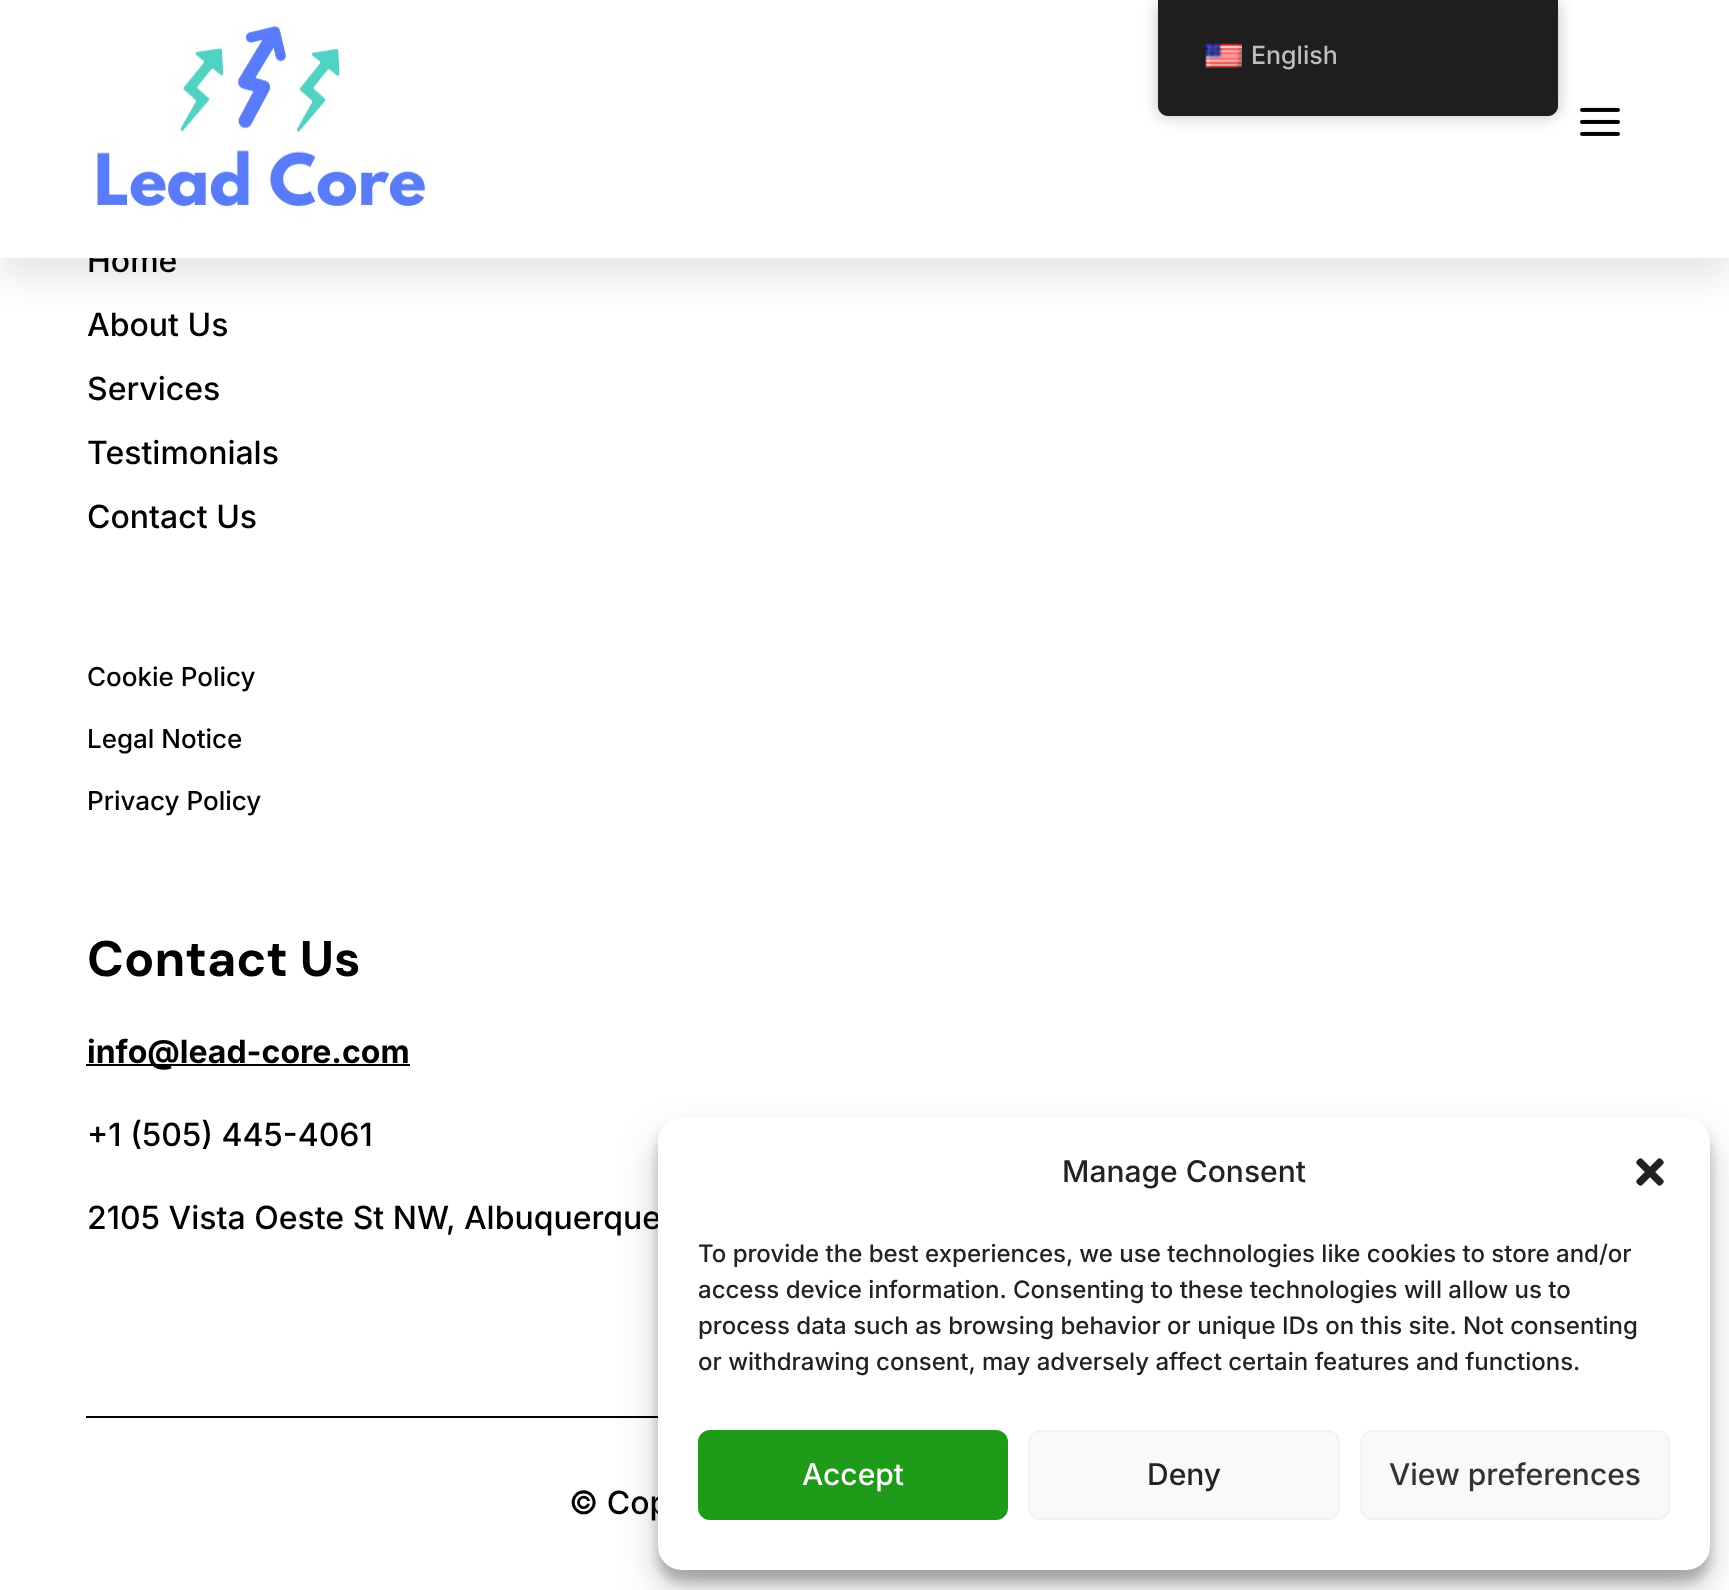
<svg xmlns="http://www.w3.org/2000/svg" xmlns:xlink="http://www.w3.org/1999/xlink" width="1729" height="1590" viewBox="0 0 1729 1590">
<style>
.cls-1{font:500 32px Inter;fill:#000000}
.cls-2{font:500 25px Inter;fill:#bdbdbd}
.cls-3{font:500 26px Inter;fill:#000000}
.cls-4{font:bold 50px DM Sans;fill:#000000}
.cls-5{font:bold 32px Inter;fill:#000000}
.cls-6{font:500 30px Inter;fill:#222222}
.cls-7{font:500 24px Inter;fill:#222222}
.cls-8{font:500 30px Inter;fill:#ffffff}
.cls-9{font:500 30px Inter;fill:#333333}
</style>
<rect width="100%" height="100%" fill="#ffffff"/>
<rect fill="#000000" fill-opacity="0.1" filter="blur(18px)" x="0" y="20" width="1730" height="258"/>
<rect fill="#000000" x="86" y="1064" width="324" height="2"/>
<rect fill="#000000" x="86" y="1416" width="572" height="2"/>
<rect fill="#000000" fill-opacity="0.23" filter="blur(6px)" x="658" y="1130" width="1052" height="452" rx="24"/>
<rect fill="#000000" fill-opacity="0.19" filter="blur(20px)" x="658" y="1138" width="1052" height="452" rx="24"/>
<text class="cls-1" x="87" y="272">Home</text>
<rect fill="#ffffff" x="0" y="0" width="1729" height="258"/>
<image xlink:href="image2.png" x="1580" y="107" width="40" height="29"/>
<rect fill="#000000" fill-opacity="0.25" filter="blur(8px)" x="1158" y="0" width="400" height="116" rx="10"/>
<path fill="#1e1e1e" d="M1158 0H1558V106C1558 111.5 1553.5 116 1548 116H1168C1162.5 116 1158 111.5 1158 106Z"/>
<text class="cls-2" x="1251" y="64">English</text>
<image xlink:href="image0.png" x="1205" y="43" width="37" height="25"/>
<image xlink:href="image1.png" x="90" y="18" width="336" height="201"/>
<text class="cls-1" x="87" y="336">About Us</text>
<text class="cls-1" x="87" y="400">Services</text>
<text class="cls-1" x="87" y="464">Testimonials</text>
<text class="cls-1" x="87" y="528">Contact Us</text>
<text class="cls-3" x="87" y="686">Cookie Policy</text>
<text class="cls-3" x="87" y="748">Legal Notice</text>
<text class="cls-3" x="87" y="810">Privacy Policy</text>
<text class="cls-4" x="87" y="976">Contact Us</text>
<text class="cls-5" x="87" y="1063">info@lead-core.com</text>
<text class="cls-1" x="87" y="1146">+1 (505) 445-4061</text>
<text class="cls-1" x="87" y="1229">2105 Vista Oeste St NW, Albuquerque</text>
<text class="cls-1" x="569" y="1514">© Cop</text>
<rect fill="#ffffff" x="658" y="1118" width="1052" height="452" rx="24"/>
<text class="cls-6" x="1062" y="1182">Manage Consent</text>
<image xlink:href="image3.png" x="1636" y="1158" width="28" height="28"/>
<text class="cls-7"><tspan x="698" y="1262">To provide the best experiences, we use technologies like cookies to store and/or</tspan><tspan x="698" y="1298">access device information. Consenting to these technologies will allow us to</tspan><tspan x="698" y="1334">process data such as browsing behavior or unique IDs on this site. Not consenting</tspan><tspan x="698" y="1370">or withdrawing consent, may adversely affect certain features and functions.</tspan></text>
<rect fill="#1f9b1a" stroke="#1f9b1a" stroke-width="2" x="699" y="1431" width="308" height="88" rx="11"/>
<text class="cls-8" x="802" y="1485">Accept</text>
<rect fill="#f9f9f9" stroke="#f2f2f2" stroke-width="2" x="1029" y="1431" width="310" height="88" rx="11"/>
<text class="cls-6" x="1147" y="1485">Deny</text>
<rect fill="#f9f9f9" stroke="#f2f2f2" stroke-width="2" x="1361" y="1431" width="308" height="88" rx="11"/>
<text class="cls-9" x="1389" y="1485">View preferences</text>
</svg>
